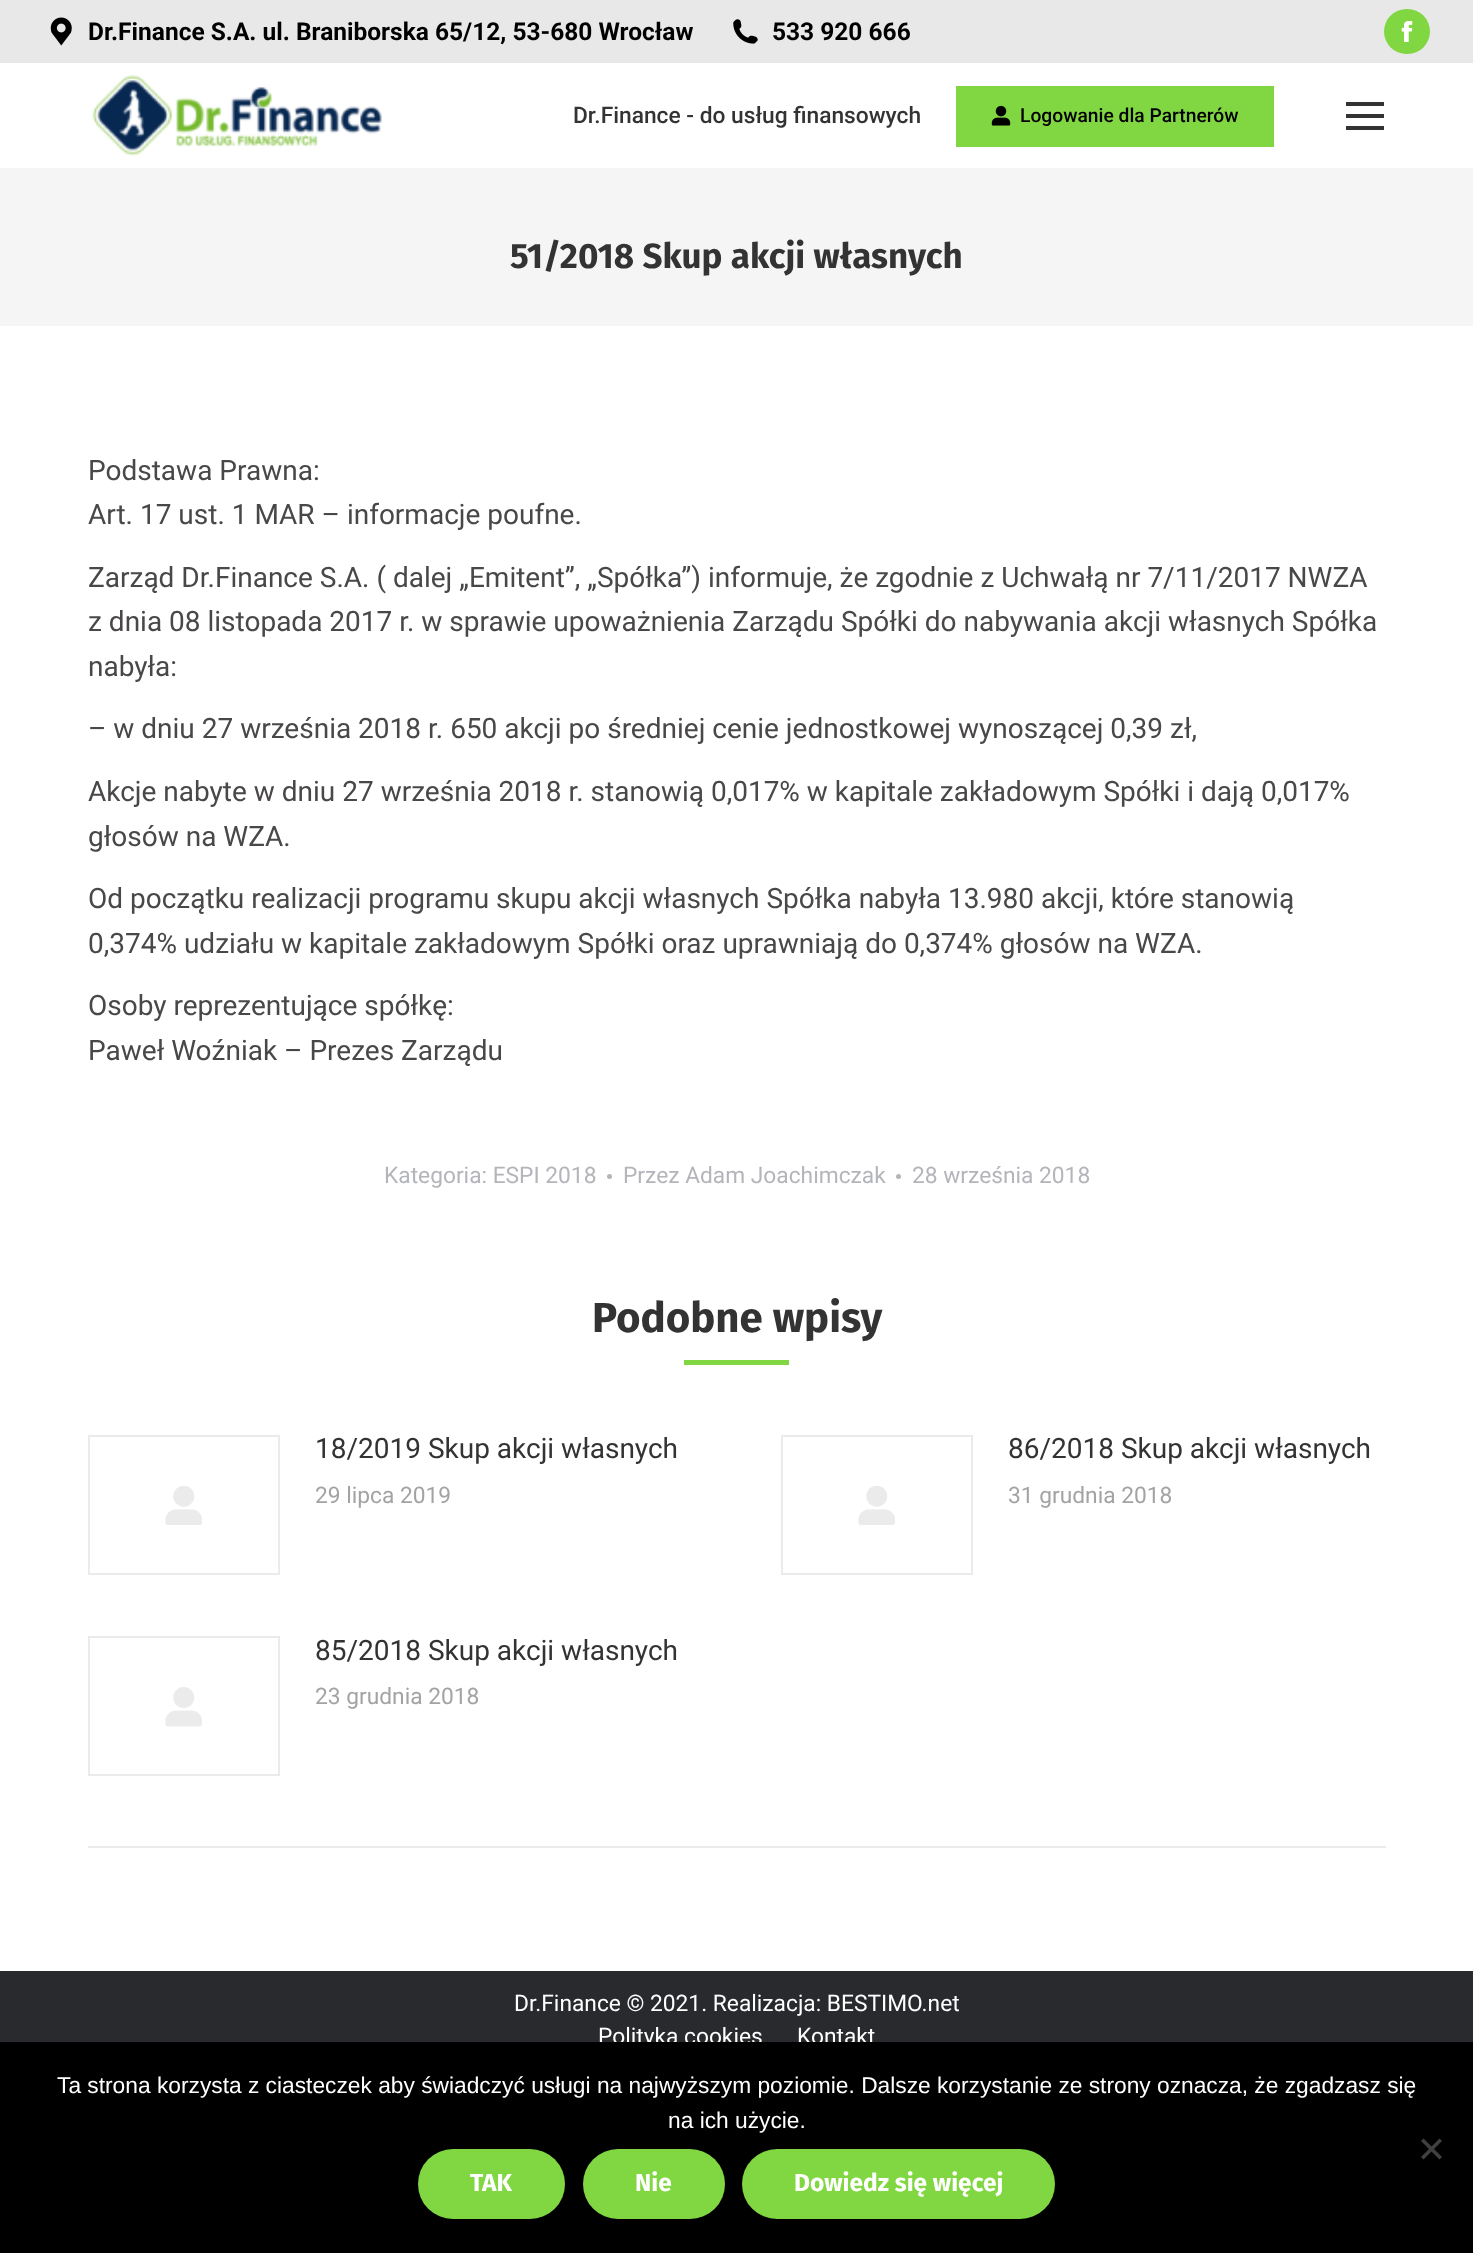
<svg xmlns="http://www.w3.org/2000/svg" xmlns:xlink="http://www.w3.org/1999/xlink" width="1473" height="2253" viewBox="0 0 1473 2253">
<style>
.cls-1{font:bold 24.5px Roboto;fill:#000000}
.cls-2{font:500 22.75px Roboto;fill:#333333}
.cls-3{font:500 19.25px Roboto;fill:#000000}
.cls-4{font:bold 35px Fira Sans;fill:#333333}
.cls-5{font:28px Roboto;fill:#494747}
.cls-6{font:22.75px Roboto;fill:#b4b5bb}
.cls-7{font:bold 42px Fira Sans;fill:#333333}
.cls-8{font:28px Roboto;fill:#333333}
.cls-9{font:22.75px Roboto;fill:#a4a3a3}
.cls-10{font:22.75px Roboto;fill:#ffffff}
.cls-11{font:22.75px Liberation Sans;fill:#ffffff}
.cls-12{font:bold 24.5px Fira Sans;fill:#ffffff}
</style>
<rect width="100%" height="100%" fill="#ffffff"/>
<rect fill="#e8e8e8" x="0" y="0" width="1473" height="63"/>
<image xlink:href="image0.png" x="50" y="17" width="22" height="29"/>
<image xlink:href="image1.png" x="733" y="19" width="25" height="25"/>
<rect fill="#81d742" x="1384" y="9" width="46" height="45" rx="22.5"/>
<image xlink:href="image2.png" x="1401" y="21" width="12" height="21"/>
<image xlink:href="image3.png" x="92" y="75" width="290" height="81"/>
<rect fill="#81d742" x="956" y="86" width="318" height="61"/>
<image xlink:href="image4.png" x="991" y="105" width="20" height="21"/>
<rect fill="#333333" x="1346" y="102" width="38" height="4"/>
<rect fill="#333333" x="1346" y="114" width="38" height="4"/>
<rect fill="#333333" x="1346" y="126" width="38" height="4"/>
<rect fill="#f5f5f5" x="0" y="168" width="1473" height="158"/>
<circle fill="#b4b5bb" cx="609.5" cy="1176.5" r="2.5"/>
<circle fill="#b4b5bb" cx="898.5" cy="1176.5" r="2.5"/>
<rect fill="#ebebeb" x="88" y="1846" width="1298" height="2"/>
<rect fill="#81d742" x="684" y="1360" width="105" height="5"/>
<rect fill="none" stroke="#ebebeb" stroke-width="2" x="89" y="1436" width="190" height="138"/>
<image xlink:href="image5.png" x="165" y="1486" width="37" height="39"/>
<rect fill="none" stroke="#ebebeb" stroke-width="2" x="782" y="1436" width="190" height="138"/>
<image xlink:href="image5.png" x="858" y="1486" width="37" height="39"/>
<rect fill="none" stroke="#ebebeb" stroke-width="2" x="89" y="1637" width="190" height="138"/>
<image xlink:href="image6.png" x="165" y="1687" width="37" height="40"/>
<rect fill="#282a2d" x="0" y="1971" width="1473" height="71"/>
<text class="cls-1" x="88" y="40">Dr.Finance S.A. ul. Braniborska 65/12, 53-680 Wrocław</text>
<text class="cls-1" x="772" y="40">533 920 666</text>
<text class="cls-2" x="573" y="123">Dr.Finance - do usług finansowych</text>
<text class="cls-3" x="1020" y="122">Logowanie dla Partnerów</text>
<text class="cls-4" x="510" y="268">51/2018 Skup akcji własnych</text>
<text class="cls-5"><tspan x="88" y="480">Podstawa Prawna:</tspan><tspan x="88" y="524">Art. 17 ust. 1 MAR – informacje poufne.</tspan></text>
<text class="cls-5"><tspan x="88" y="587">Zarząd Dr.Finance S.A. ( dalej „Emitent”, „Spółka”) informuje, że zgodnie z Uchwałą nr 7/11/2017 NWZA</tspan><tspan x="88" y="631">z dnia 08 listopada 2017 r. w sprawie upoważnienia Zarządu Spółki do nabywania akcji własnych Spółka</tspan><tspan x="88" y="676">nabyła:</tspan></text>
<text class="cls-5" x="88" y="738">– w dniu 27 września 2018 r. 650 akcji po średniej cenie jednostkowej wynoszącej 0,39 zł,</text>
<text class="cls-5"><tspan x="88" y="801">Akcje nabyte w dniu 27 września 2018 r. stanowią 0,017% w kapitale zakładowym Spółki i dają 0,017%</tspan><tspan x="88" y="846">głosów na WZA.</tspan></text>
<text class="cls-5"><tspan x="88" y="908">Od początku realizacji programu skupu akcji własnych Spółka nabyła 13.980 akcji, które stanowią</tspan><tspan x="88" y="953">0,374% udziału w kapitale zakładowym Spółki oraz uprawniają do 0,374% głosów na WZA.</tspan></text>
<text class="cls-5"><tspan x="88" y="1015">Osoby reprezentujące spółkę:</tspan><tspan x="88" y="1060">Paweł Woźniak – Prezes Zarządu</tspan></text>
<text class="cls-6" x="384" y="1183">Kategoria: ESPI 2018</text>
<text class="cls-6" x="623" y="1183">Przez Adam Joachimczak</text>
<text class="cls-6" x="912" y="1183">28 września 2018</text>
<text class="cls-7" x="592" y="1332">Podobne wpisy</text>
<text class="cls-8" x="315" y="1458">18/2019 Skup akcji własnych</text>
<text class="cls-9" x="315" y="1503">29 lipca 2019</text>
<text class="cls-8" x="1008" y="1458">86/2018 Skup akcji własnych</text>
<text class="cls-9" x="1008" y="1503">31 grudnia 2018</text>
<text class="cls-8" x="315" y="1660">85/2018 Skup akcji własnych</text>
<text class="cls-9" x="315" y="1704">23 grudnia 2018</text>
<text class="cls-10" x="514" y="2011">Dr.Finance © 2021. Realizacja: BESTIMO.net</text>
<text class="cls-10" x="598" y="2044">Polityka cookies</text>
<text class="cls-10" x="797" y="2044">Kontakt</text>
<rect fill="#000000" x="0" y="2042" width="1473" height="211"/>
<text class="cls-11" x="57" y="2093">Ta strona korzysta z ciasteczek aby świadczyć usługi na najwyższym poziomie. Dalsze korzystanie ze strony oznacza, że zgadzasz się</text>
<text class="cls-11" x="668" y="2128">na ich użycie.</text>
<path fill="#404040" d="M1439.5 2138.5L1442 2141L1423.5 2159.5L1421 2157Z"/>
<path fill="#404040" d="M1421 2141L1423.5 2138.5L1442 2157L1439.5 2159.5Z"/>
<rect fill="#81d742" x="418" y="2149" width="147" height="70" rx="35"/>
<text class="cls-12" x="470" y="2191">TAK</text>
<rect fill="#81d742" x="583" y="2149" width="142" height="70" rx="35"/>
<text class="cls-12" x="635" y="2191">Nie</text>
<rect fill="#81d742" x="742" y="2149" width="313" height="70" rx="35"/>
<text class="cls-12" x="794" y="2191">Dowiedz się więcej</text>
</svg>
